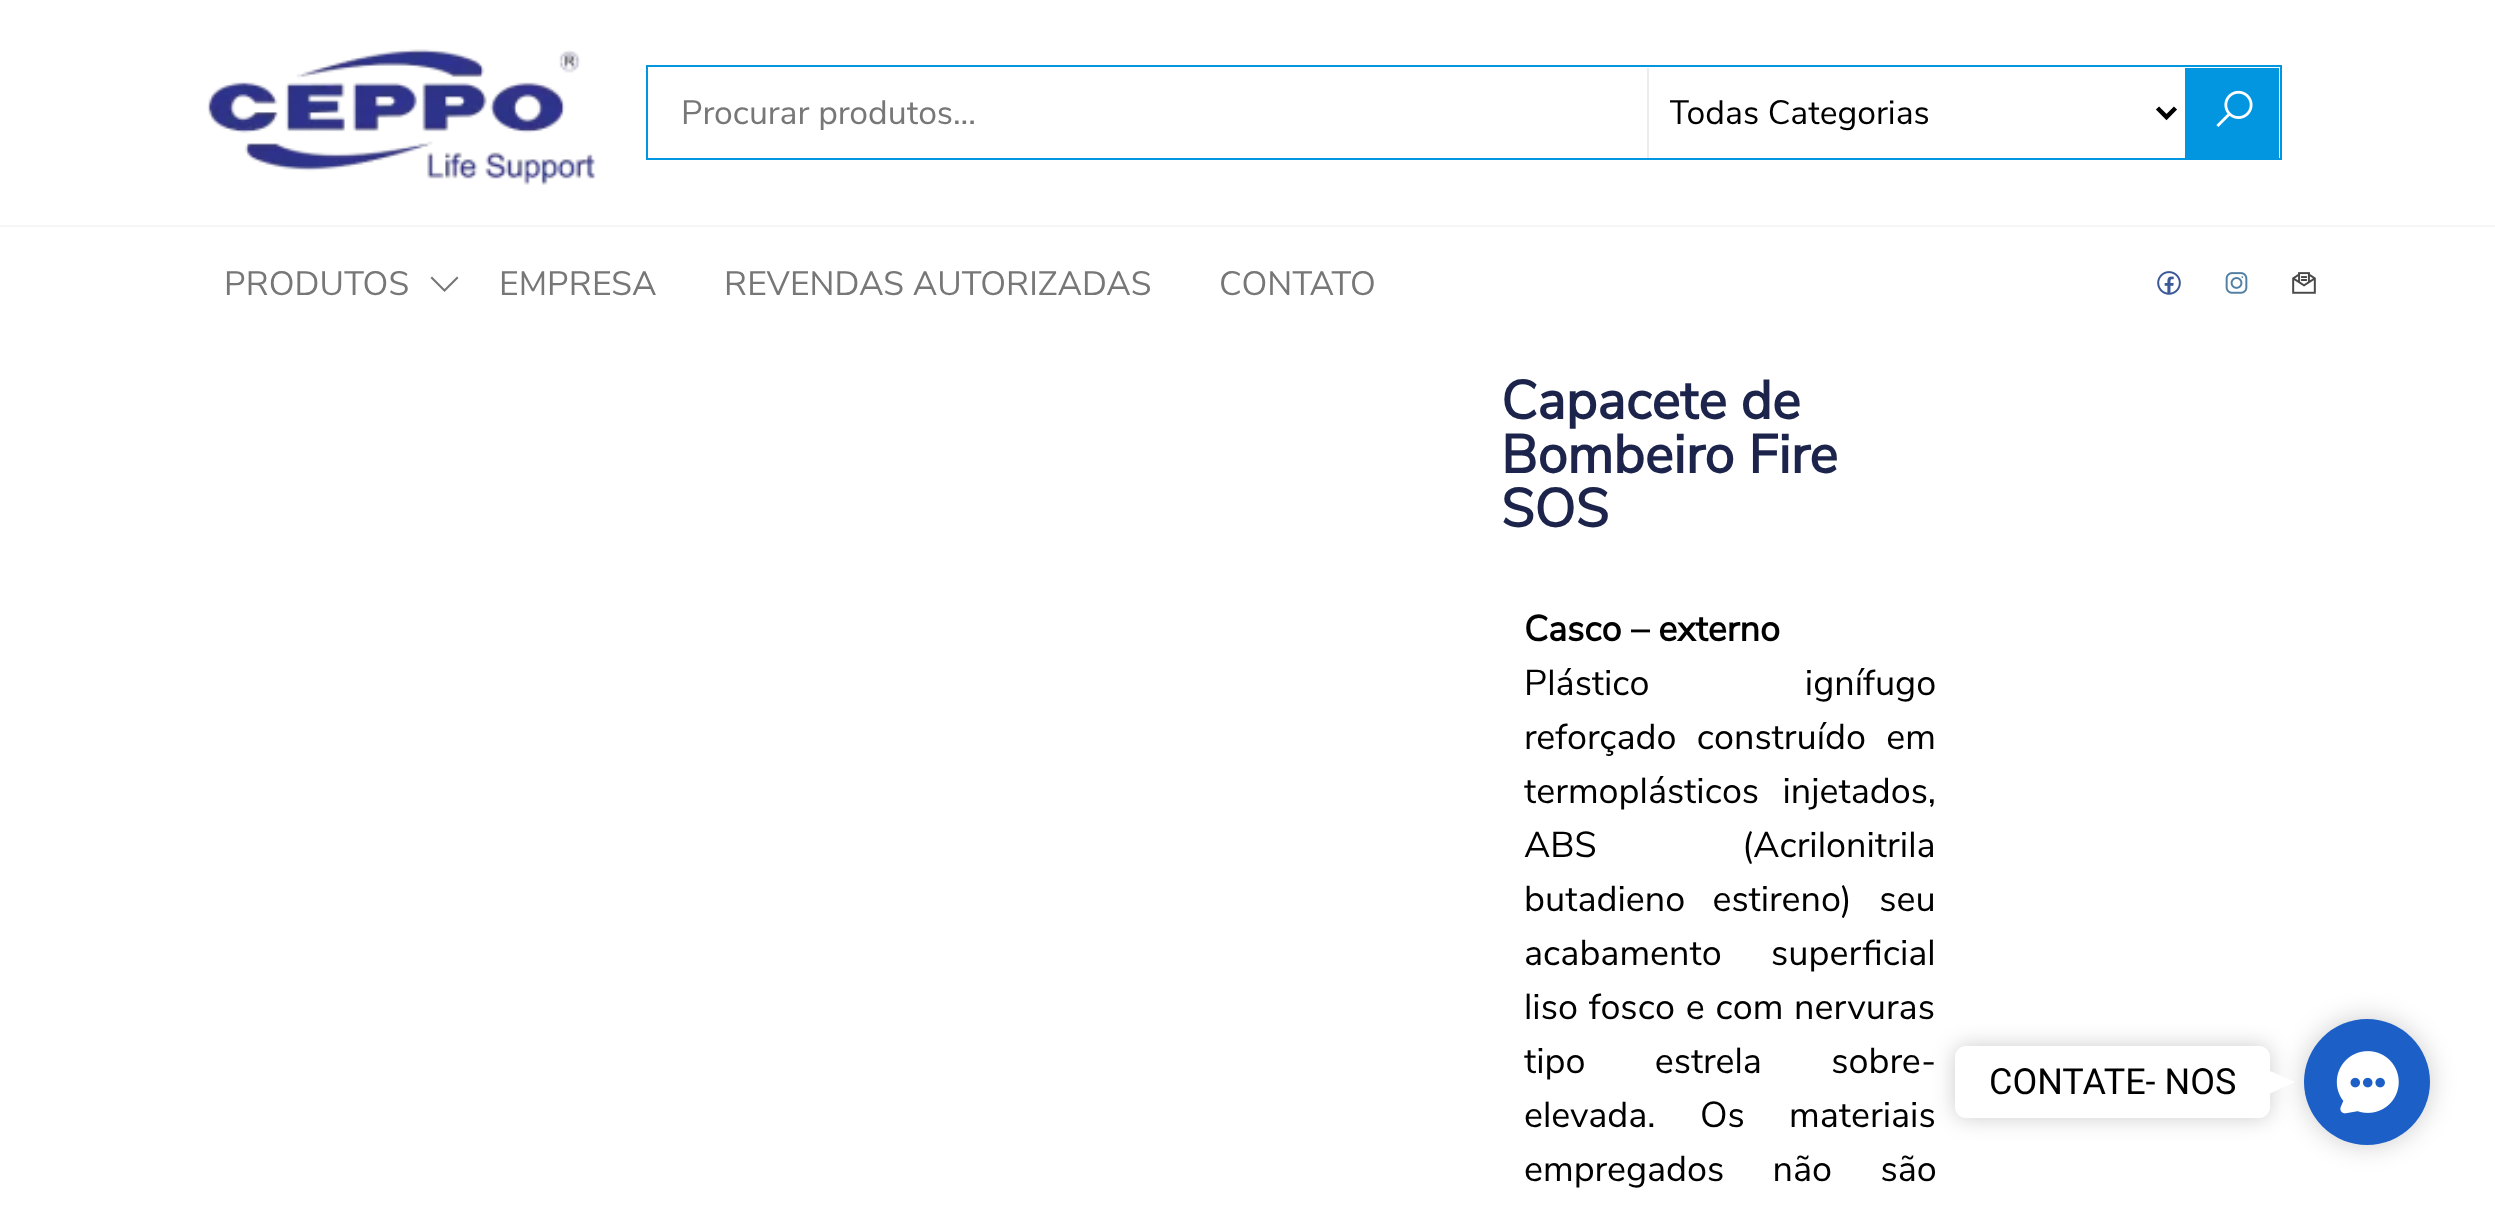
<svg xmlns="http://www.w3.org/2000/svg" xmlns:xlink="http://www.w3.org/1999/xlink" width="2495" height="1210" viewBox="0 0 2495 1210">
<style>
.cls-1{font:33.75px Nunito Sans;fill:#777777}
.cls-2{font:33.75px Nunito Sans;fill:#000000}
.cls-3{font:bold 54px Nunito Sans;fill:#1c244b}
.cls-4{font:bold 36px Nunito Sans;fill:#000000}
.cls-5{font:36px Nunito Sans;fill:#000000}
.cls-6{font:36px Roboto;fill:#000000}
</style>
<defs>
<clipPath id="clip1"><rect x="1670" y="88" width="468" height="49"/></clipPath>
</defs>
<rect width="100%" height="100%" fill="#ffffff"/>
<rect fill="#f6f6f6" x="0" y="225" width="2495" height="2"/>
<image xlink:href="image0.png" x="207" y="49" width="389" height="136"/>
<rect fill="none" stroke="#0396e0" stroke-width="2" x="647" y="66" width="1634" height="93"/>
<rect fill="#ececec" x="1647" y="68" width="2" height="90"/>
<path fill="none" stroke="#000000" stroke-width="4.5" d="M2157.5 108L2166.5 117L2175.5 108"/>
<rect fill="#0396e0" x="2185" y="68" width="94" height="90"/>
<image xlink:href="image1.png" x="2216" y="90" width="37" height="37"/>
<path fill="#777777" d="M432 276.5L430.5 278L444.5 292L458.5 278L457 276.5L444.5 289Z"/>
<image xlink:href="image2.png" x="2157" y="271" width="24" height="24"/>
<image xlink:href="image3.png" x="2225" y="272" width="23" height="22"/>
<image xlink:href="image4.png" x="2292" y="272" width="24" height="22"/>
<rect fill="#000000" fill-opacity="0.2" filter="blur(11px)" x="1955" y="1046" width="315" height="72" rx="11"/>
<rect fill="#000000" fill-opacity="0.2" filter="blur(13.5px)" x="2304" y="1019" width="126" height="126" rx="63"/>
<rect fill="#ffffff" x="1955" y="1046" width="315" height="72" rx="11"/>
<path fill="#ffffff" d="M2270 1093.5V1071L2295 1082Z"/>
<circle fill="#1c5fc6" cx="2367" cy="1082" r="63"/>
<image xlink:href="image5.png" x="2336" y="1051" width="63" height="63"/>
<text class="cls-1" x="681" y="124">Procurar produtos...</text>
<g clip-path="url(#clip1)">
<text class="cls-2" x="1669" y="124">Todas Categorias</text>
</g>
<text class="cls-1" x="224" y="295">PRODUTOS</text>
<text class="cls-1" x="499" y="295">EMPRESA</text>
<text class="cls-1" x="724" y="295">REVENDAS AUTORIZADAS</text>
<text class="cls-1" x="1219" y="295">CONTATO</text>
<text class="cls-3"><tspan x="1501" y="419">Capacete de</tspan><tspan x="1501" y="473">Bombeiro Fire</tspan><tspan x="1501" y="527">SOS</tspan></text>
<text class="cls-4" x="1524" y="641">Casco – externo</text>
<text class="cls-5"><tspan x="1524" y="695" word-spacing="146">Plástico ignífugo</tspan><tspan x="1524" y="749" word-spacing="11">reforçado construído em</tspan><tspan x="1524" y="803" word-spacing="14">termoplásticos injetados,</tspan><tspan x="1524" y="857" word-spacing="136">ABS (Acrilonitrila</tspan><tspan x="1524" y="911" word-spacing="18">butadieno estireno) seu</tspan><tspan x="1524" y="965" word-spacing="40">acabamento superficial</tspan><tspan x="1524" y="1019" word-spacing="1.5">liso fosco e com nervuras</tspan><tspan x="1524" y="1073" word-spacing="60">tipo estrela sobre-</tspan><tspan x="1524" y="1127" word-spacing="35">elevada. Os materiais</tspan><tspan x="1524" y="1181" word-spacing="39">empregados não são</tspan></text>
<text class="cls-6" x="1989" y="1094">CONTATE- NOS</text>
</svg>
